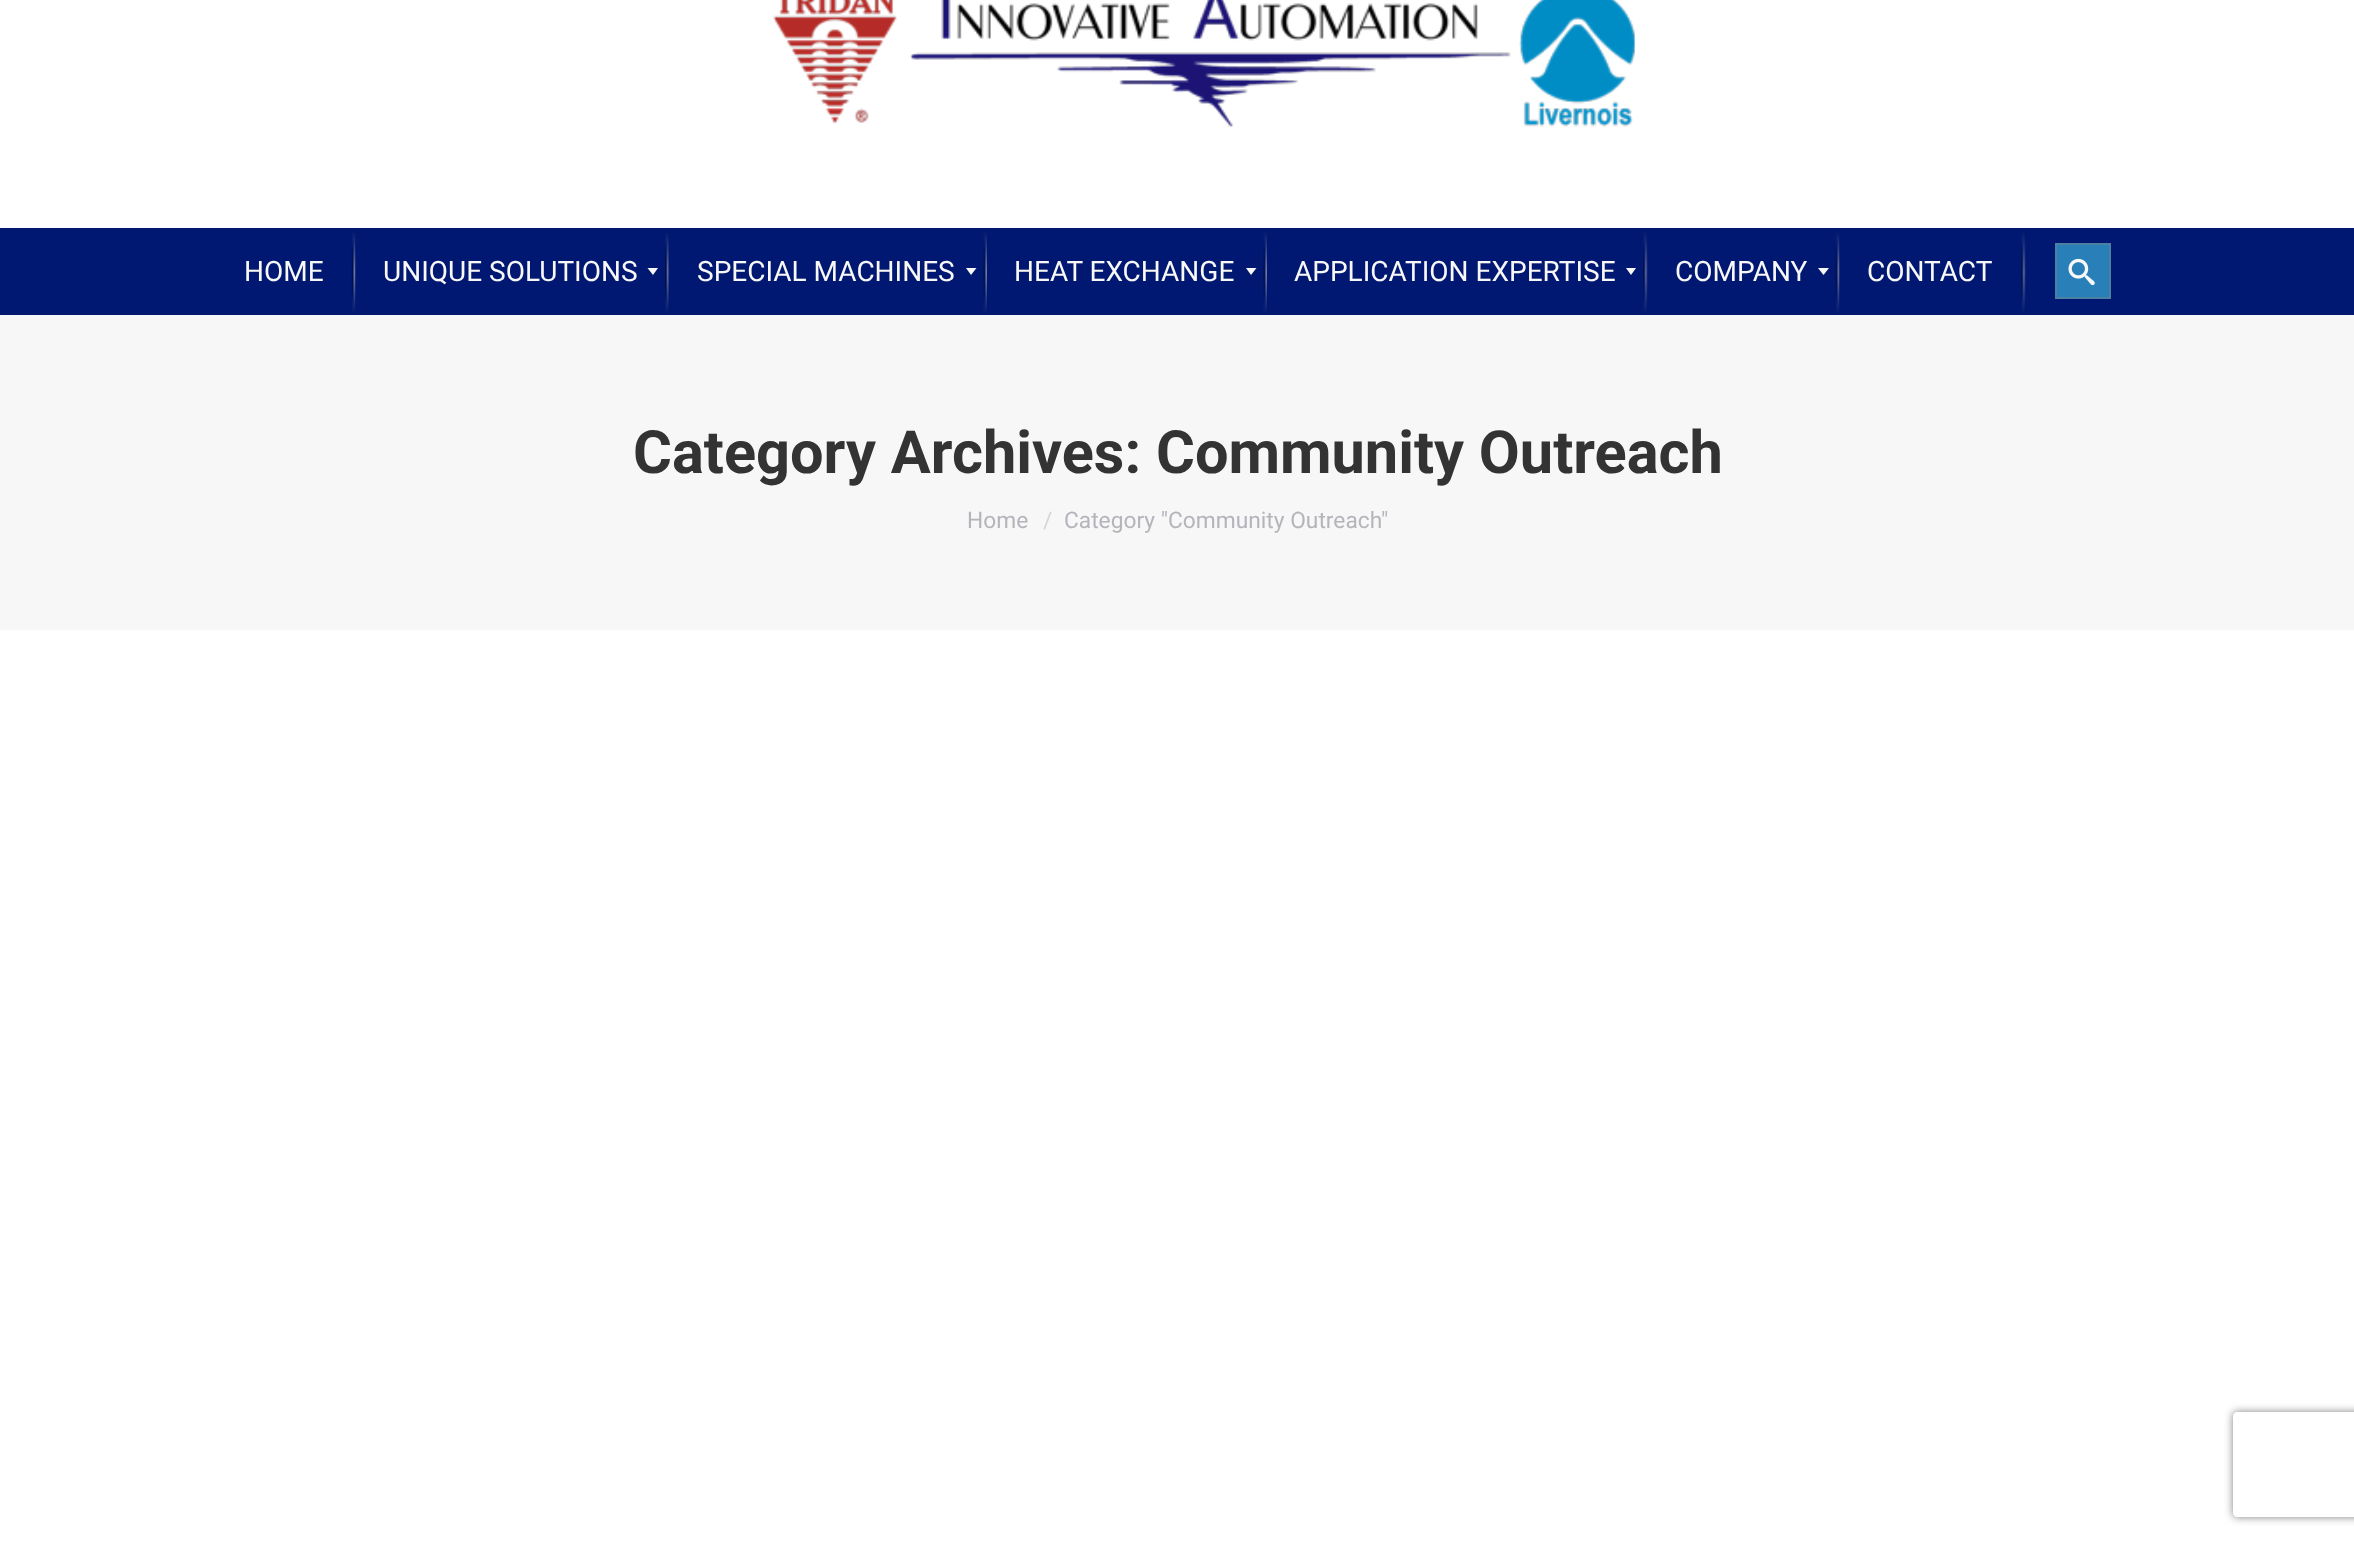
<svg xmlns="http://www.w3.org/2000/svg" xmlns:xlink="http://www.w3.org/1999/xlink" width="2354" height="1541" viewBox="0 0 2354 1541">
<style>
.cls-1{font:28px Roboto;fill:#f8f8f8}
.cls-2{font:bold 59.5px Roboto;fill:#333333}
.cls-3{font:22.75px Roboto;fill:#b4b5bb}
.cls-4{font:22.75px Roboto;fill:#d6d6d9}
</style>
<defs>
<clipPath id="clip1"><path d="M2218 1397H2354V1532H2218ZM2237 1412H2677C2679 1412 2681 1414 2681 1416V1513C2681 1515 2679 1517 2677 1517H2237C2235 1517 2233 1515 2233 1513V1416C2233 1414 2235 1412 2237 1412Z" clip-rule="evenodd"/></clipPath>
</defs>
<rect width="100%" height="100%" fill="#ffffff"/>
<image xlink:href="image0.png" x="773" y="0" width="863" height="128"/>
<rect fill="#001871" x="0" y="228" width="2354" height="87"/>
<image xlink:href="image1.png" x="351" y="233" width="5" height="79"/>
<path fill="#f8f8f8" d="M647.5 268H658L653 275Z"/>
<image xlink:href="image2.png" x="665" y="233" width="4" height="79"/>
<path fill="#f8f8f8" d="M966 268H976.5L971 275Z"/>
<image xlink:href="image3.png" x="983" y="233" width="4" height="79"/>
<path fill="#f8f8f8" d="M1246 268H1256.5L1251 275Z"/>
<image xlink:href="image3.png" x="1263" y="233" width="4" height="79"/>
<path fill="#f8f8f8" d="M1626 268H1636L1631 275Z"/>
<image xlink:href="image4.png" x="1643" y="233" width="5" height="79"/>
<path fill="#f8f8f8" d="M1818 268H1829L1823.5 275Z"/>
<image xlink:href="image5.png" x="1835" y="233" width="5" height="79"/>
<image xlink:href="image6.png" x="2021" y="233" width="5" height="79"/>
<rect fill="#2980b9" stroke="#4c80a2" stroke-width="2" x="2056" y="244" width="54" height="54"/>
<image xlink:href="image7.png" x="2068" y="258" width="27" height="28"/>
<rect fill="#f7f7f7" x="0" y="315" width="2354" height="315"/>
<g clip-path="url(#clip1)">
<rect fill="#808080" filter="blur(4.5px)" x="2233" y="1412" width="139" height="105" rx="4"/>
</g>
<text class="cls-1" x="244" y="281">HOME</text>
<text class="cls-1" x="383" y="281">UNIQUE SOLUTIONS</text>
<text class="cls-1" x="697" y="281">SPECIAL MACHINES</text>
<text class="cls-1" x="1014" y="281">HEAT EXCHANGE</text>
<text class="cls-1" x="1294" y="281">APPLICATION EXPERTISE</text>
<text class="cls-1" x="1675" y="281">COMPANY</text>
<text class="cls-1" x="1867" y="281">CONTACT</text>
<text class="cls-2" x="633" y="473">Category Archives: Community Outreach</text>
<text class="cls-3" x="967" y="528">Home</text>
<text class="cls-4" x="1043" y="528">/</text>
<text class="cls-3" x="1064" y="528">Category "Community Outreach"</text>
</svg>
